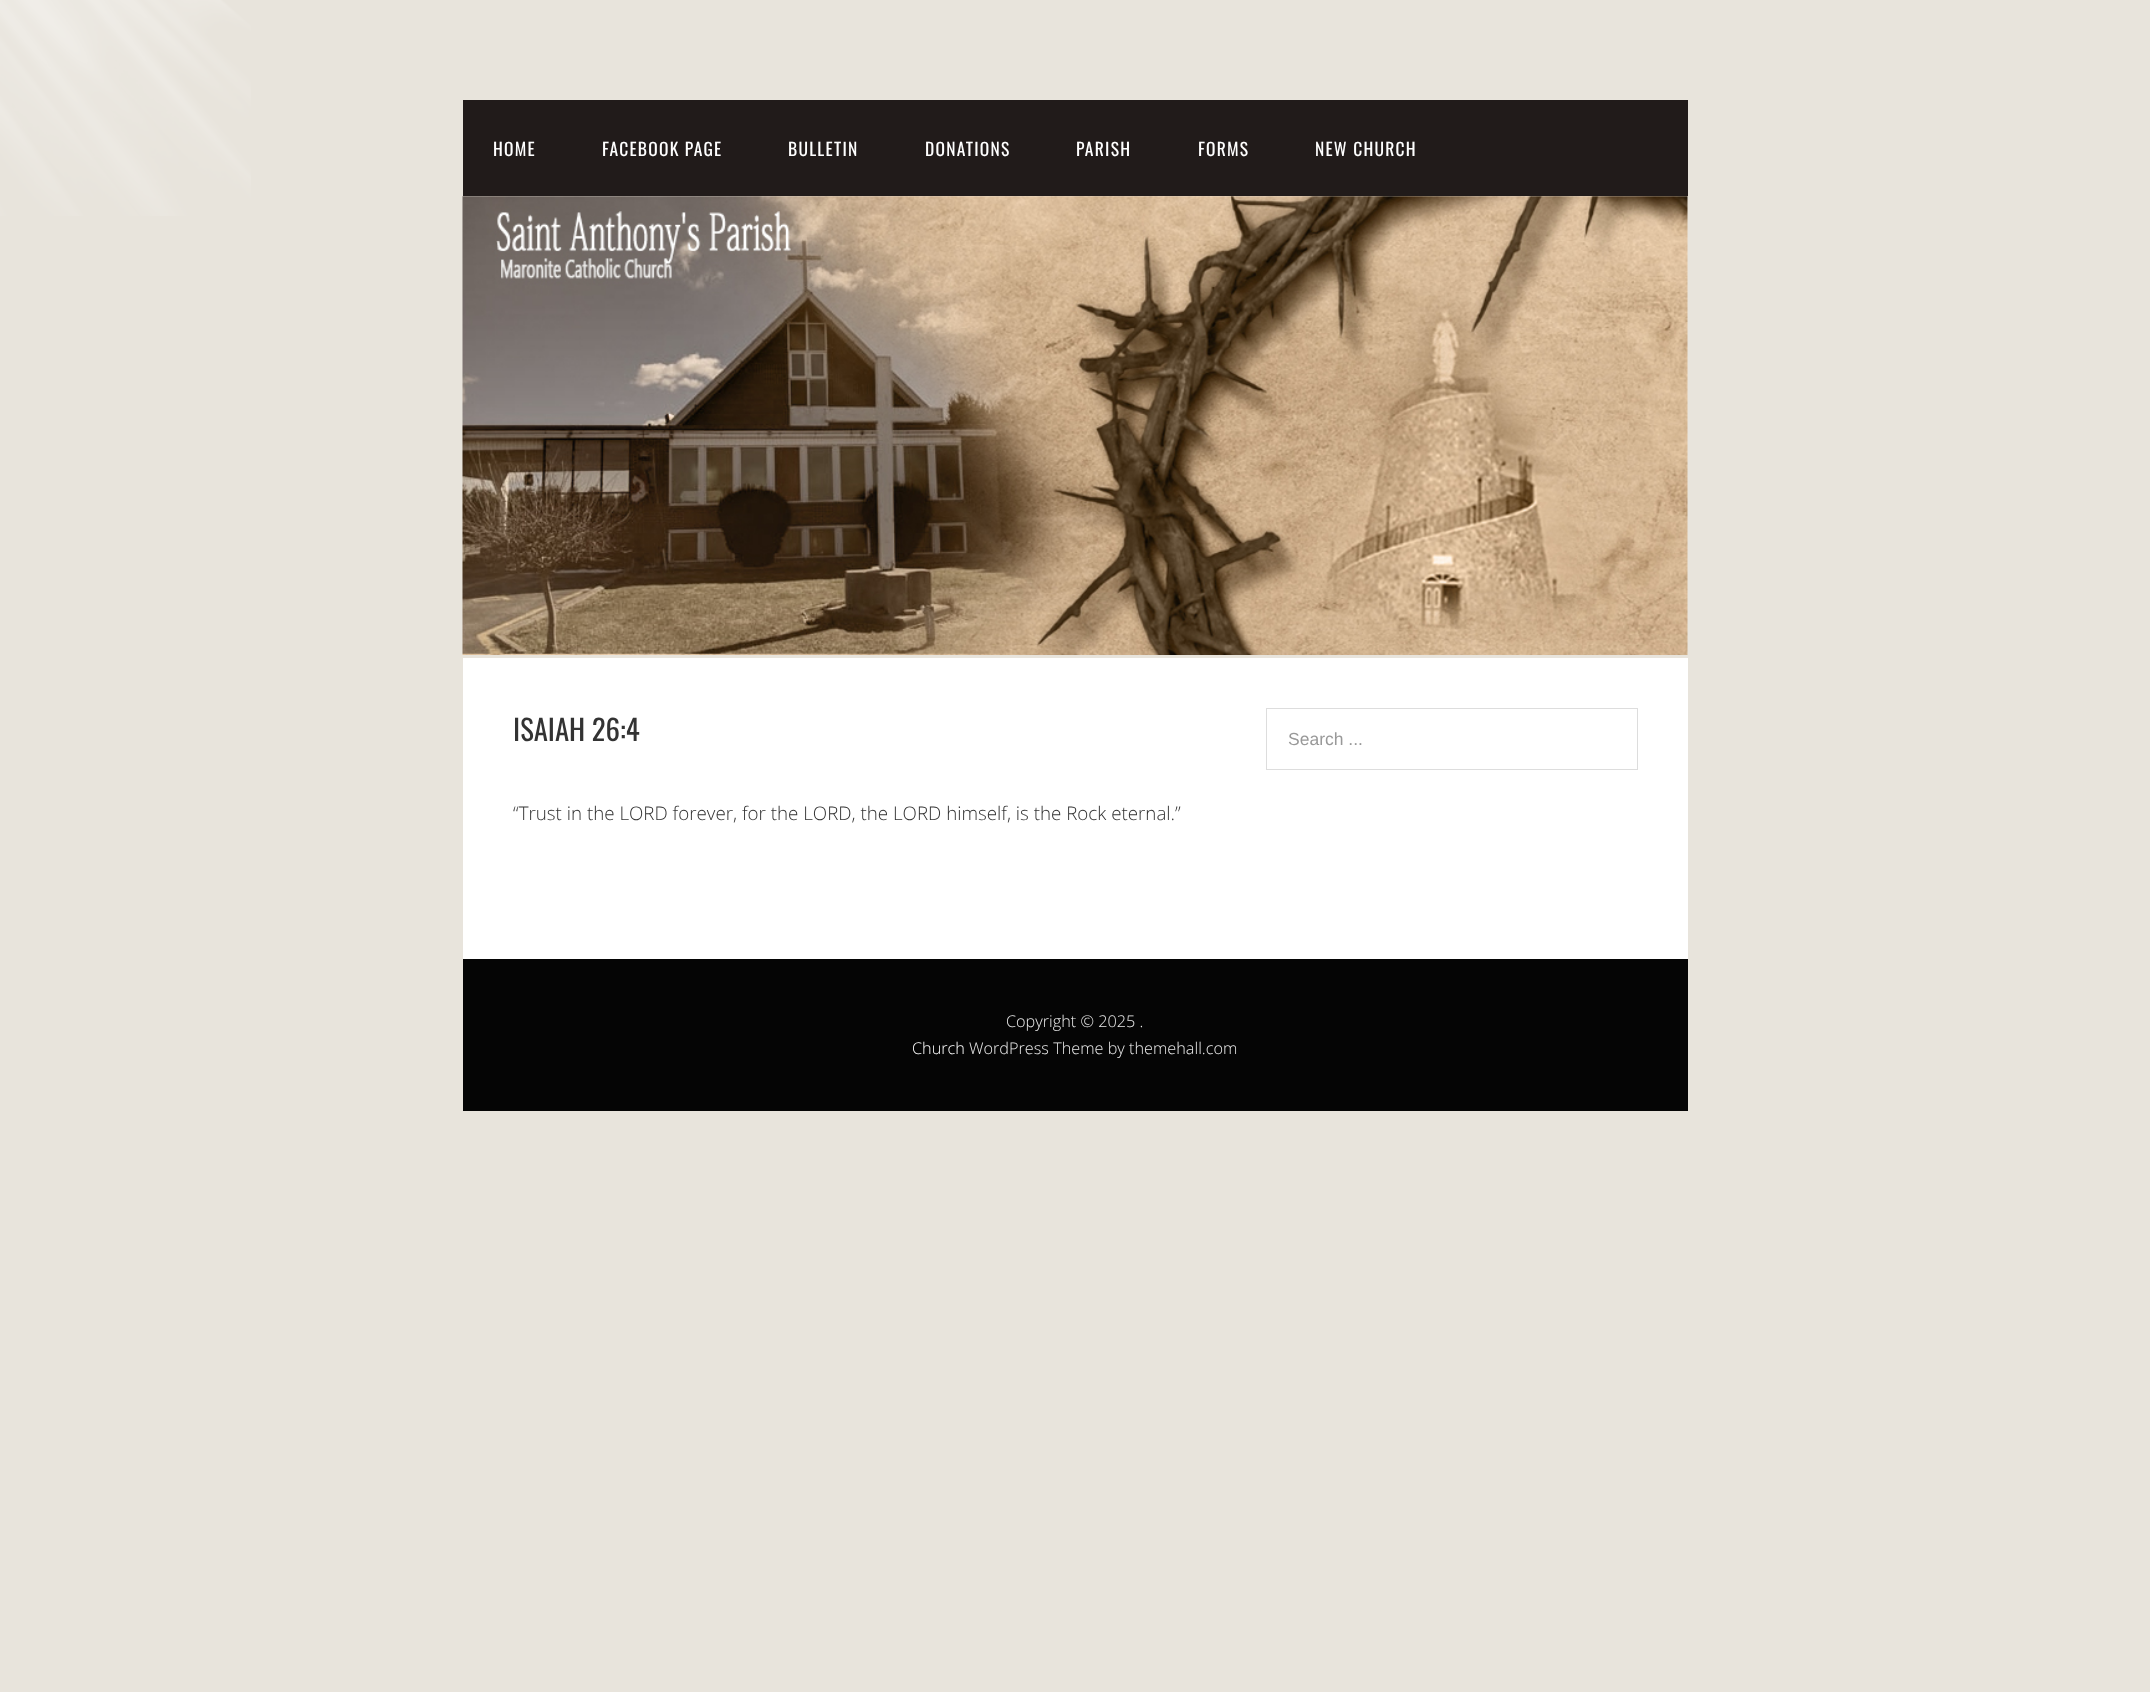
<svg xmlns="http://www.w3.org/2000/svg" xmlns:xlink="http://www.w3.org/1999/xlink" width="2150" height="1692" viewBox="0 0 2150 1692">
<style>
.cls-1{font:17.5px Oswald;letter-spacing:1.25px;fill:#ffffff}
.cls-2{font:28.75px Oswald;fill:#333333}
.cls-3{font:300 18.75px Open Sans;fill:#333333}
.cls-4{font:17.5px Liberation Sans;fill:#999999}
.cls-5{font:300 16.25px Open Sans;fill:#eaeaea}
.cls-6{font:300 16.25px Open Sans;fill:#ffffff}
</style>
<rect width="100%" height="100%" fill="#e8e4dc"/>
<image xlink:href="image0.png" x="0" y="0" width="251" height="216"/>
<rect fill="#211b1a" x="463" y="100" width="1225" height="96"/>
<image xlink:href="image1.png" x="462" y="196" width="1226" height="459"/>
<rect fill="#ffffff" x="463" y="658" width="1225" height="301"/>
<rect fill="none" stroke="#dddddd" x="1266.5" y="708.5" width="371" height="61"/>
<rect fill="#050505" x="463" y="959" width="1225" height="152"/>
<text class="cls-1" x="493" y="156">HOME</text>
<text class="cls-1" x="602" y="156">FACEBOOK PAGE</text>
<text class="cls-1" x="788" y="156">BULLETIN</text>
<text class="cls-1" x="925" y="156">DONATIONS</text>
<text class="cls-1" x="1076" y="156">PARISH</text>
<text class="cls-1" x="1198" y="156">FORMS</text>
<text class="cls-1" x="1315" y="156">NEW CHURCH</text>
<text class="cls-2" x="513" y="741">ISAIAH 26:4</text>
<text class="cls-3" x="513" y="820">“Trust in the LORD forever, for the LORD, the LORD himself, is the Rock eternal.”</text>
<text class="cls-4" x="1288" y="745">Search ...</text>
<text class="cls-5" x="1006" y="1027">Copyright © 2025 .</text>
<text class="cls-6" x="912" y="1054">Church</text>
<text class="cls-5" x="969" y="1054">WordPress Theme by themehall.com</text>
</svg>
